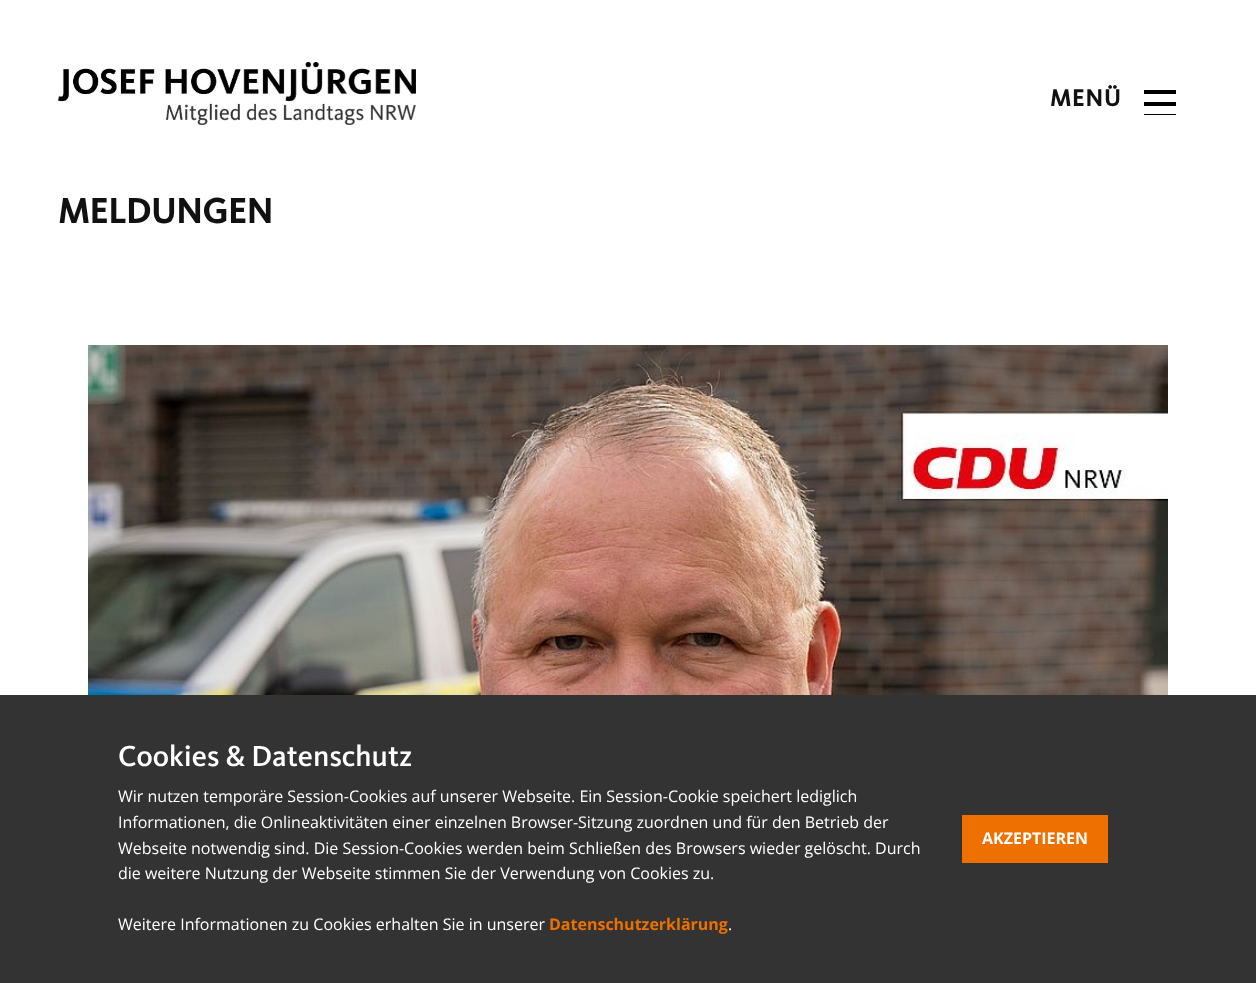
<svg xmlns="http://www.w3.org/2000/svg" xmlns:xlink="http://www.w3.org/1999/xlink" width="1256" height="983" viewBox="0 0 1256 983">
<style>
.cls-1{font:bold 24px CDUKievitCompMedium;letter-spacing:1px;fill:#111111}
.cls-2{font:bold 36px CDUKievitCompMedium;fill:#111111}
.cls-3{font:500 30px CDUKievitCompMedium;fill:#ffffff}
.cls-4{font:16px Open Sans;fill:#ffffff}
.cls-5{font:bold 16px Open Sans;fill:#ee7100}
.cls-6{font:bold 16px Open Sans;fill:#ffffff}
</style>
<rect width="100%" height="100%" fill="#ffffff"/>
<image xlink:href="image0.png" x="58" y="62" width="358" height="63"/>
<rect fill="#000000" x="1144" y="90" width="32" height="4"/>
<rect fill="#000000" x="1144" y="102" width="32" height="4"/>
<rect fill="#000000" x="1144" y="114" width="32" height="1"/>
<image xlink:href="image1.png" x="88" y="345" width="1080" height="350"/>
<rect fill="#333333" x="0" y="695" width="1256" height="288"/>
<rect fill="#ee7100" x="962" y="815" width="146" height="48"/>
<text class="cls-1" x="1050" y="106">MENÜ</text>
<text class="cls-2" x="58" y="223">MELDUNGEN</text>
<text class="cls-3" x="118" y="766">Cookies &amp; Datenschutz</text>
<text class="cls-4"><tspan x="118" y="802">Wir nutzen temporäre Session-Cookies auf unserer Webseite. Ein Session-Cookie speichert lediglich</tspan><tspan x="118" y="828">Informationen, die Onlineaktivitäten einer einzelnen Browser-Sitzung zuordnen und für den Betrieb der</tspan><tspan x="118" y="854">Webseite notwendig sind. Die Session-Cookies werden beim Schließen des Browsers wieder gelöscht. Durch</tspan><tspan x="118" y="879">die weitere Nutzung der Webseite stimmen Sie der Verwendung von Cookies zu.</tspan></text>
<text class="cls-4" x="118" y="930">Weitere Informationen zu Cookies erhalten Sie in unserer</text>
<text class="cls-5" x="549" y="930">Datenschutzerklärung</text>
<text class="cls-4" x="728" y="930">.</text>
<text class="cls-6" x="982" y="844">AKZEPTIEREN</text>
</svg>
